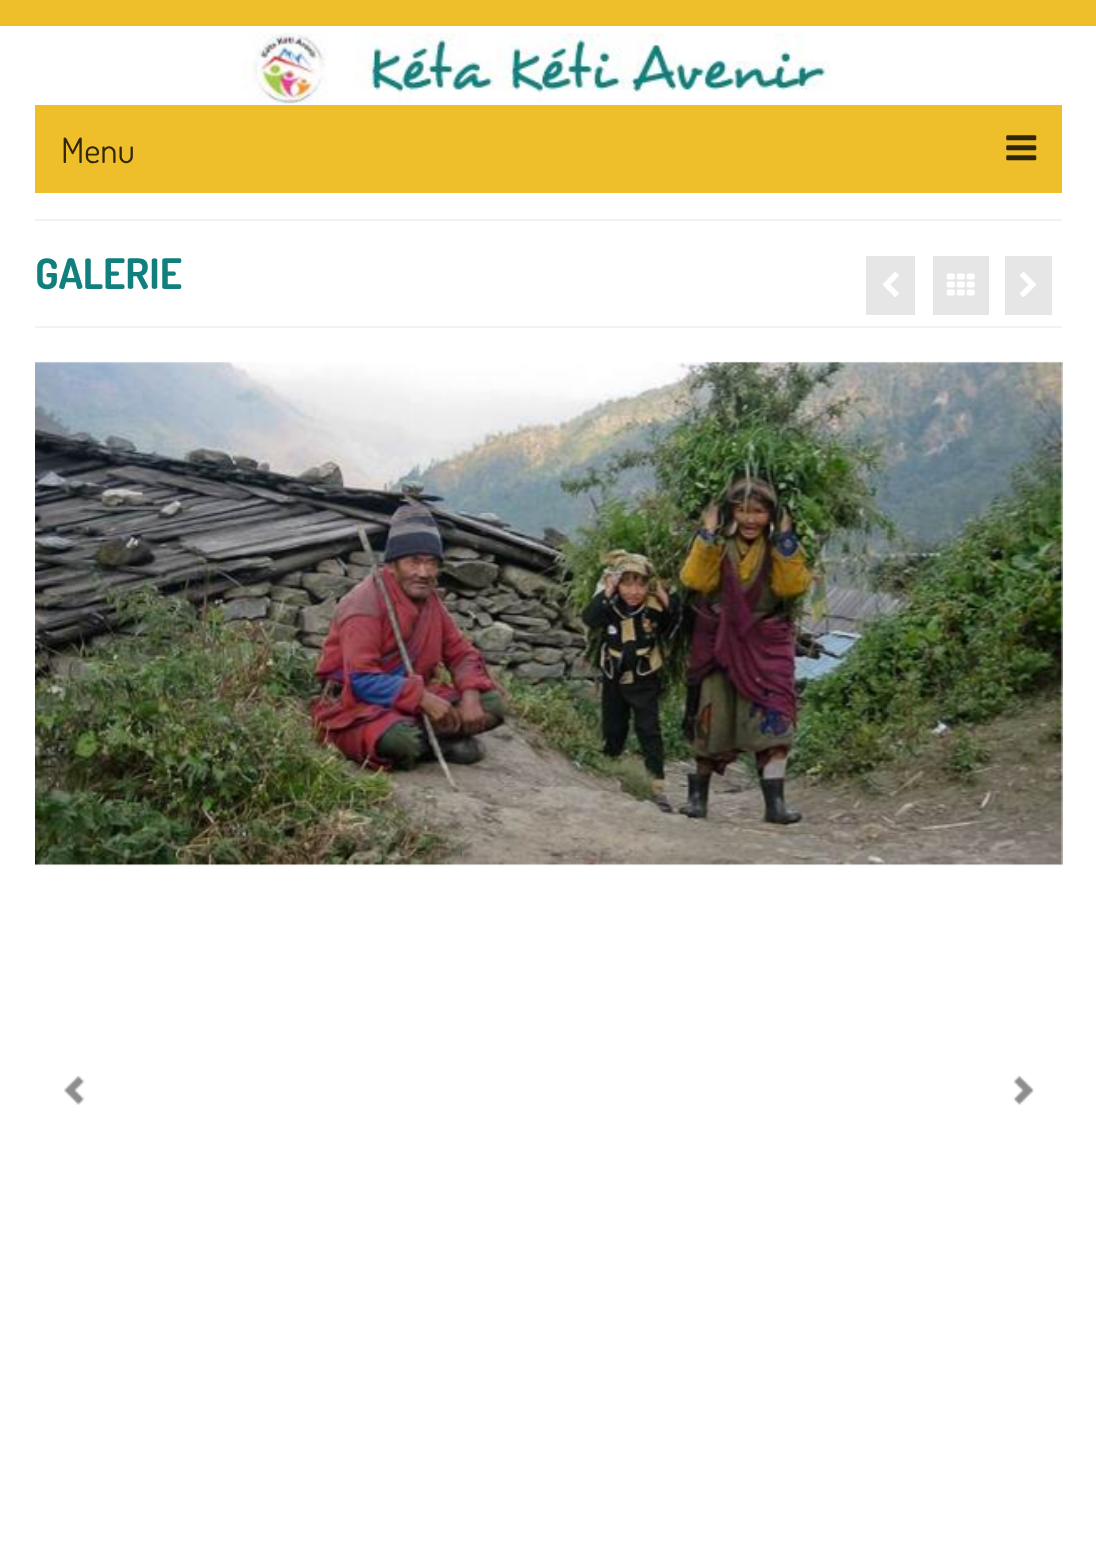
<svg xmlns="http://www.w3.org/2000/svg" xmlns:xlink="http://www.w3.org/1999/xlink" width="1096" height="1542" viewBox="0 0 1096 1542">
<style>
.cls-1{font:35px Dosis;fill:#302609}
.cls-2{font:bold 42px Dosis;fill:#107f7d}
</style>
<rect width="100%" height="100%" fill="#ffffff"/>
<rect fill="#efbe2b" x="0" y="0" width="1096" height="26"/>
<image xlink:href="image0.png" x="243" y="33" width="588" height="71"/>
<rect fill="#efbe2b" x="35" y="105" width="1027" height="88"/>
<image xlink:href="image1.png" x="1006" y="135" width="31" height="26"/>
<rect fill="#f2f2f2" x="35" y="219" width="1027" height="2"/>
<rect fill="#f2f2f2" x="35" y="326" width="1027" height="2"/>
<rect fill="#e6e6e6" x="866" y="256" width="49" height="59"/>
<image xlink:href="image2.png" x="882" y="272" width="17" height="25"/>
<rect fill="#e6e6e6" x="933" y="256" width="56" height="59"/>
<image xlink:href="image3.png" x="946" y="273" width="29" height="23"/>
<rect fill="#e6e6e6" x="1005" y="256" width="47" height="59"/>
<image xlink:href="image4.png" x="1020" y="272" width="16" height="25"/>
<image xlink:href="image5.png" x="35" y="361" width="1028" height="505"/>
<image xlink:href="image6.png" x="64" y="1075" width="21" height="30"/>
<image xlink:href="image7.png" x="1013" y="1075" width="22" height="30"/>
<text class="cls-1" x="61" y="163">Menu</text>
<text class="cls-2" x="35" y="289">GALERIE</text>
</svg>
